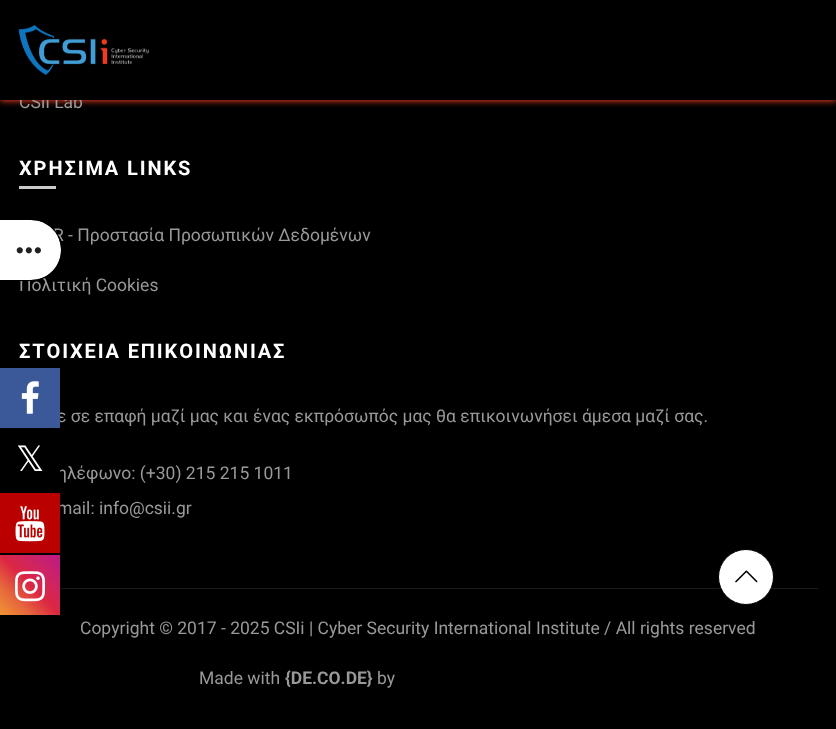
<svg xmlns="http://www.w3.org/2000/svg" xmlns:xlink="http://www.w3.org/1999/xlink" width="836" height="729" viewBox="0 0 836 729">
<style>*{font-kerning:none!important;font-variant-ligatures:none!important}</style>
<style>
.cls-1{font:17.5px Roboto;fill:#999999}
.cls-2{font:bold 20px Roboto;letter-spacing:1.9px;fill:#ffffff}
.cls-3{font:bold 17.5px Roboto;fill:#999999}
.cls-4{font:35px DejaVu Sans;fill:#ffffff}
</style>
<defs>
<linearGradient id="g1" gradientUnits="userSpaceOnUse" x1="0" y1="615" x2="60" y2="555"><stop offset="0" stop-color="#f09433"/><stop offset="0.25" stop-color="#e6683c"/><stop offset="0.5" stop-color="#dc2743"/><stop offset="0.75" stop-color="#cc2366"/><stop offset="1" stop-color="#bc1888"/></linearGradient>
</defs>
<rect width="100%" height="100%" fill="#000000"/>
<rect fill="#ee3c23" filter="blur(3px)" x="0" y="1" width="836" height="100"/>
<rect fill="#cccccc" x="19" y="186" width="37" height="3"/>
<rect fill="#1a1a1a" x="60" y="588" width="758" height="1"/>
<rect fill="url(#g1)" x="0" y="555" width="60" height="60"/>
<image xlink:href="image4.png" x="15" y="571" width="30" height="31"/>
<circle fill="#ffffff" stroke="#000000" cx="746" cy="577" r="27.5"/>
<image xlink:href="image5.png" x="735" y="570" width="23" height="13"/>
<text class="cls-1" x="19" y="108">CSIi Lab</text>
<rect fill="#000000" x="0" y="0" width="836" height="100"/>
<image xlink:href="image0.png" x="18" y="25" width="131" height="50"/>
<text class="cls-2" x="19" y="175">ΧΡΗΣΙΜΑ LINKS</text>
<text class="cls-1" x="53" y="241">R - Προστασία Προσωπικών Δεδομένων</text>
<text class="cls-1" x="19" y="291">Πολιτική Cookies</text>
<text class="cls-2" x="19" y="358">ΣΤΟΙΧΕΙΑ ΕΠΙΚΟΙΝΩΝΙΑΣ</text>
<text class="cls-1" x="57" y="422">ε σε επαφή μαζί μας και ένας εκπρόσωπός μας θα επικοινωνήσει άμεσα μαζί σας.</text>
<text class="cls-1" x="57" y="479">ηλέφωνο: (+30) 215 215 1011</text>
<text class="cls-1" x="57" y="514">mail: info@csii.gr</text>
<text class="cls-1" x="80" y="634">Copyright © 2017 - 2025 CSIi | Cyber Security International Institute / All rights reserved</text>
<text class="cls-1" x="199" y="684">Made with</text>
<text class="cls-3" x="285" y="684">{DE.CO.DE}</text>
<text class="cls-1" x="377" y="684">by</text>
<path fill="#ffffff" d="M0 220H31C47.5 220 61 233.5 61 250C61 266.5 47.5 280 31 280H0Z"/>
<path fill="#000000" fill-rule="evenodd" d="M0 219H31C49 219 62 233 62 250C62 267 49 281 31 281H0ZM0 220H31C48 220 61 233 61 250C61 267 48 280 31 280H0Z"/>
<image xlink:href="image1.png" x="16" y="247" width="25" height="7"/>
<rect fill="#3b5998" x="0" y="368" width="60" height="60"/>
<image xlink:href="image2.png" x="21" y="381" width="18" height="33"/>
<rect fill="#000000" x="58" y="469" width="2" height="10"/>
<text class="cls-4" x="16" y="471">𝕏</text>
<rect fill="#bb0000" x="0" y="493" width="60" height="60"/>
<image xlink:href="image3.png" x="15" y="506" width="30" height="36"/>
</svg>
